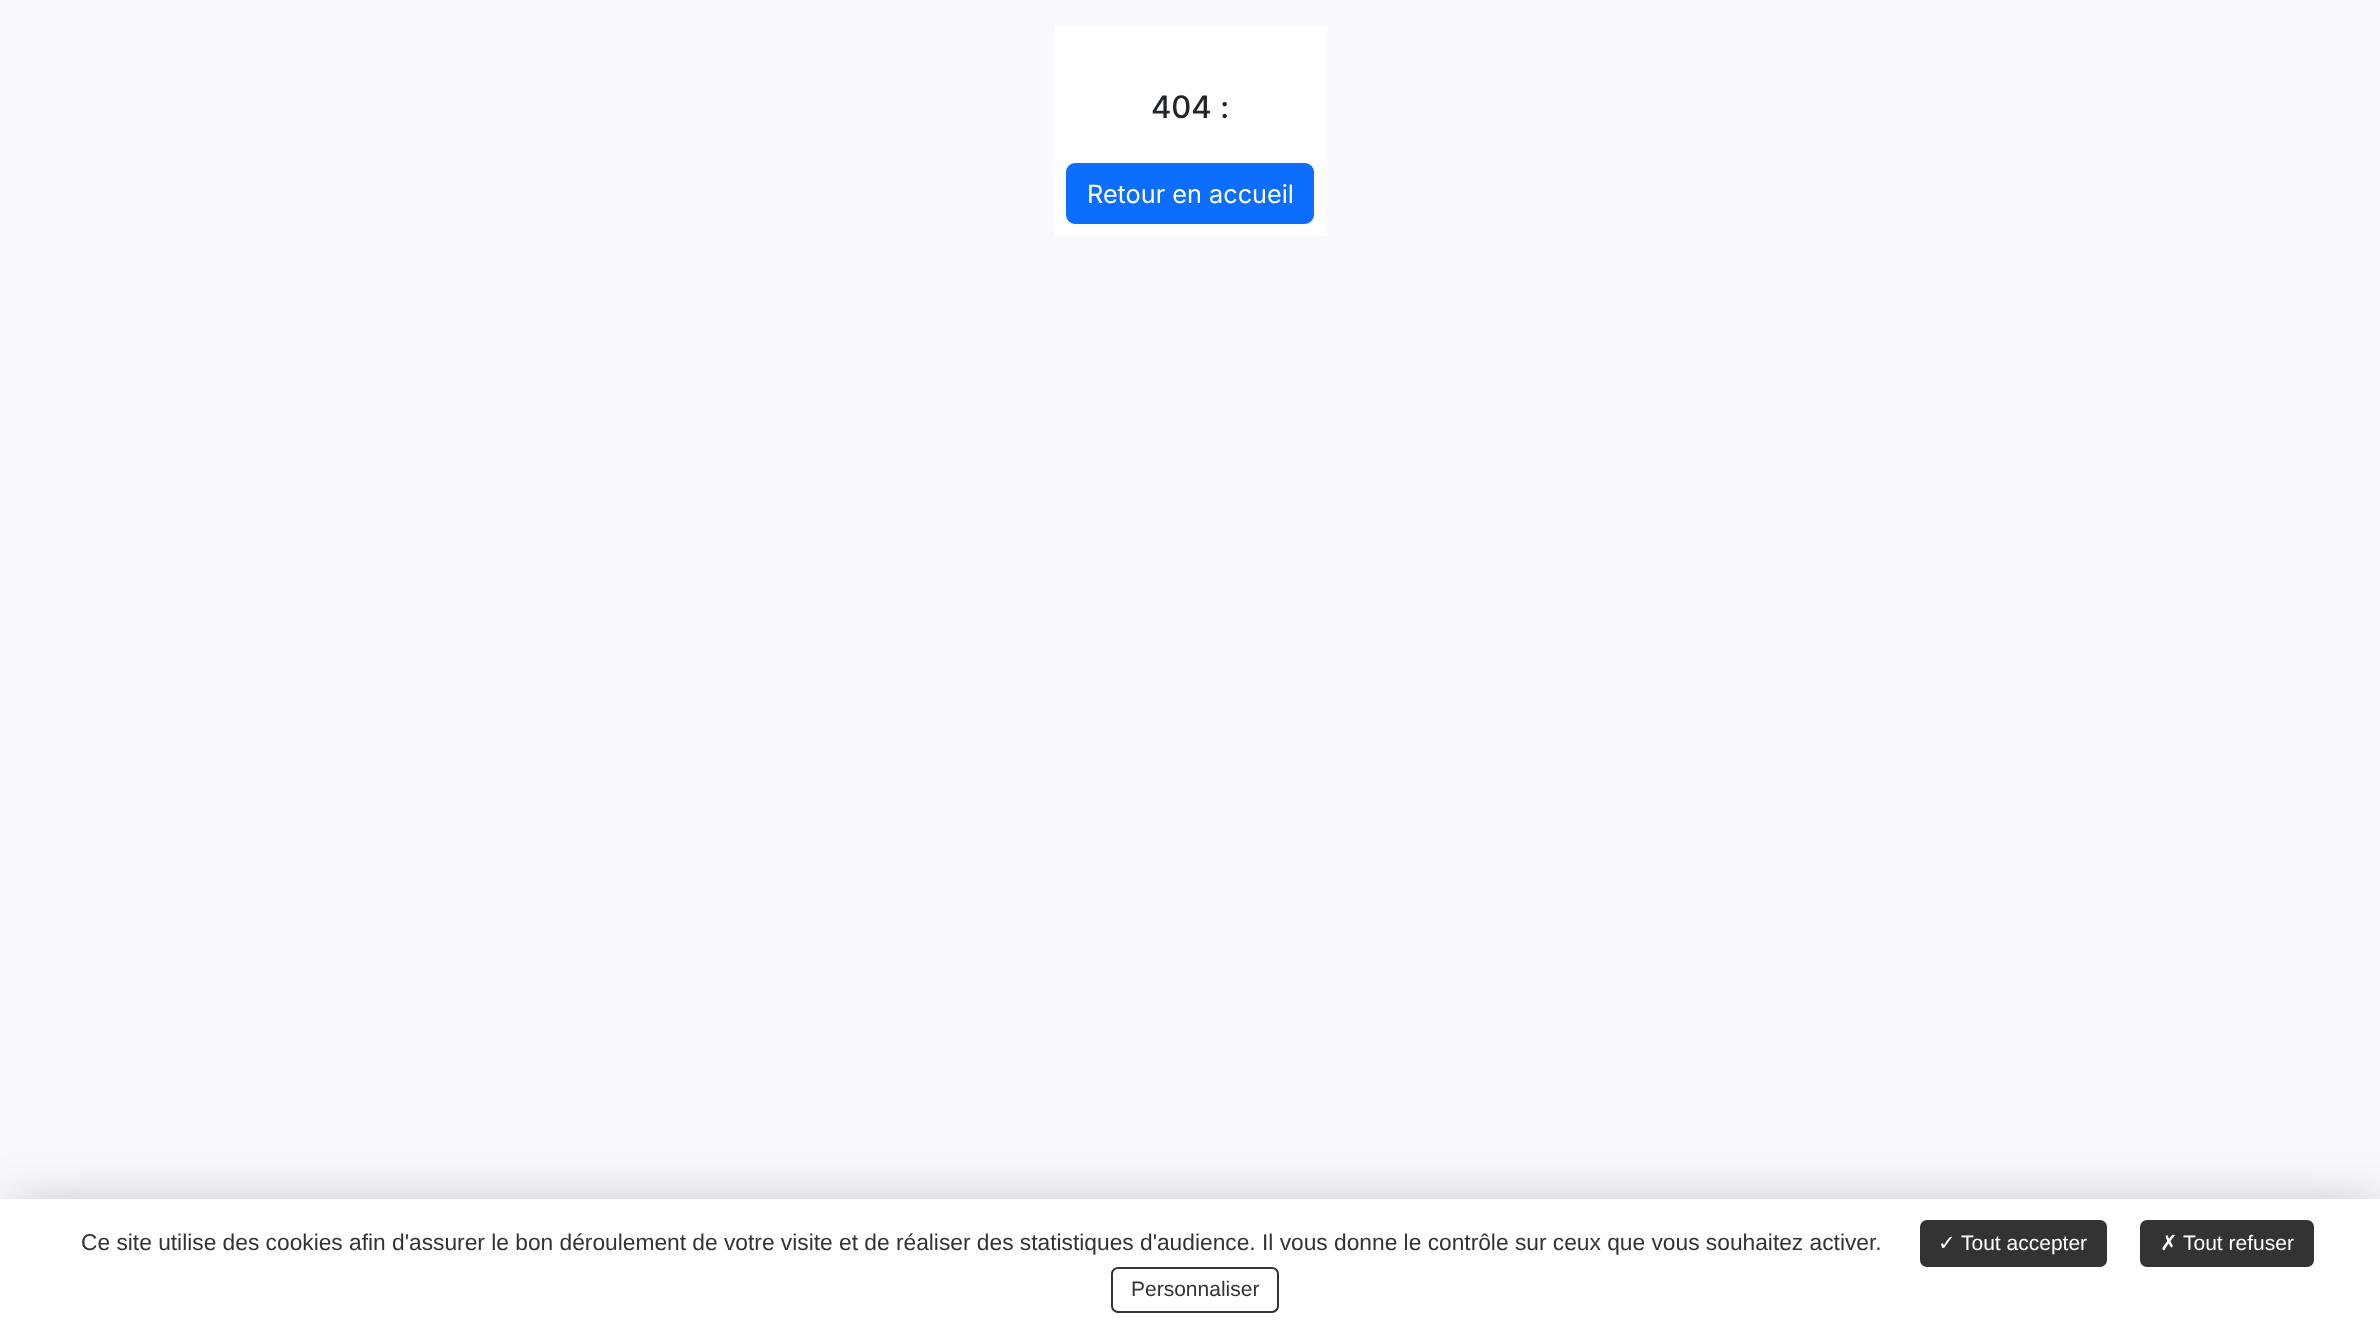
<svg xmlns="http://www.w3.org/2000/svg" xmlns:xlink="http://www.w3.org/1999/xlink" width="2380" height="1330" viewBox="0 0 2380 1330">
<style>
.cls-1{font:500 31px Inter;fill:#212529}
.cls-2{font:25.25px Inter;fill:#ffffff}
.cls-3{font:22.75px Liberation Sans;fill:#333333}
.cls-4{font:21px DejaVu Sans;fill:#ffffff}
.cls-5{font:21px Liberation Sans;fill:#ffffff}
.cls-6{font:21px Liberation Sans;fill:#333333}
</style>
<rect width="100%" height="100%" fill="#f7f9fc"/>
<rect fill="#ffffff" x="1054" y="25" width="273" height="211"/>
<rect fill="#0d6efd" stroke="#0d6efd" stroke-width="2" x="1067" y="164" width="246" height="59" rx="8"/>
<rect fill="#000000" fill-opacity="0.4" filter="blur(31.5px)" x="11" y="1220" width="2369" height="110"/>
<rect fill="#ffffff" x="0" y="1199" width="2380" height="131"/>
<rect fill="#333333" stroke="#333333" stroke-width="2" x="1921" y="1221" width="185" height="45" rx="6"/>
<rect fill="#333333" stroke="#333333" stroke-width="2" x="2141" y="1221" width="172" height="45" rx="6"/>
<rect fill="none" stroke="#333333" stroke-width="2" x="1112" y="1268" width="166" height="44" rx="6"/>
<text class="cls-1" x="1151" y="118">404 :</text>
<text class="cls-2" x="1087" y="203">Retour en accueil</text>
<text class="cls-3" x="81" y="1250">Ce site utilise des cookies afin d'assurer le bon déroulement de votre visite et de réaliser des statistiques d'audience. Il vous donne le contrôle sur ceux que vous souhaitez activer.</text>
<text class="cls-4" x="1938" y="1250">✓</text>
<text class="cls-5" x="1961" y="1250">Tout accepter</text>
<text class="cls-4" x="2160" y="1250">✗</text>
<text class="cls-5" x="2183" y="1250">Tout refuser</text>
<text class="cls-6" x="1131" y="1296">Personnaliser</text>
</svg>
